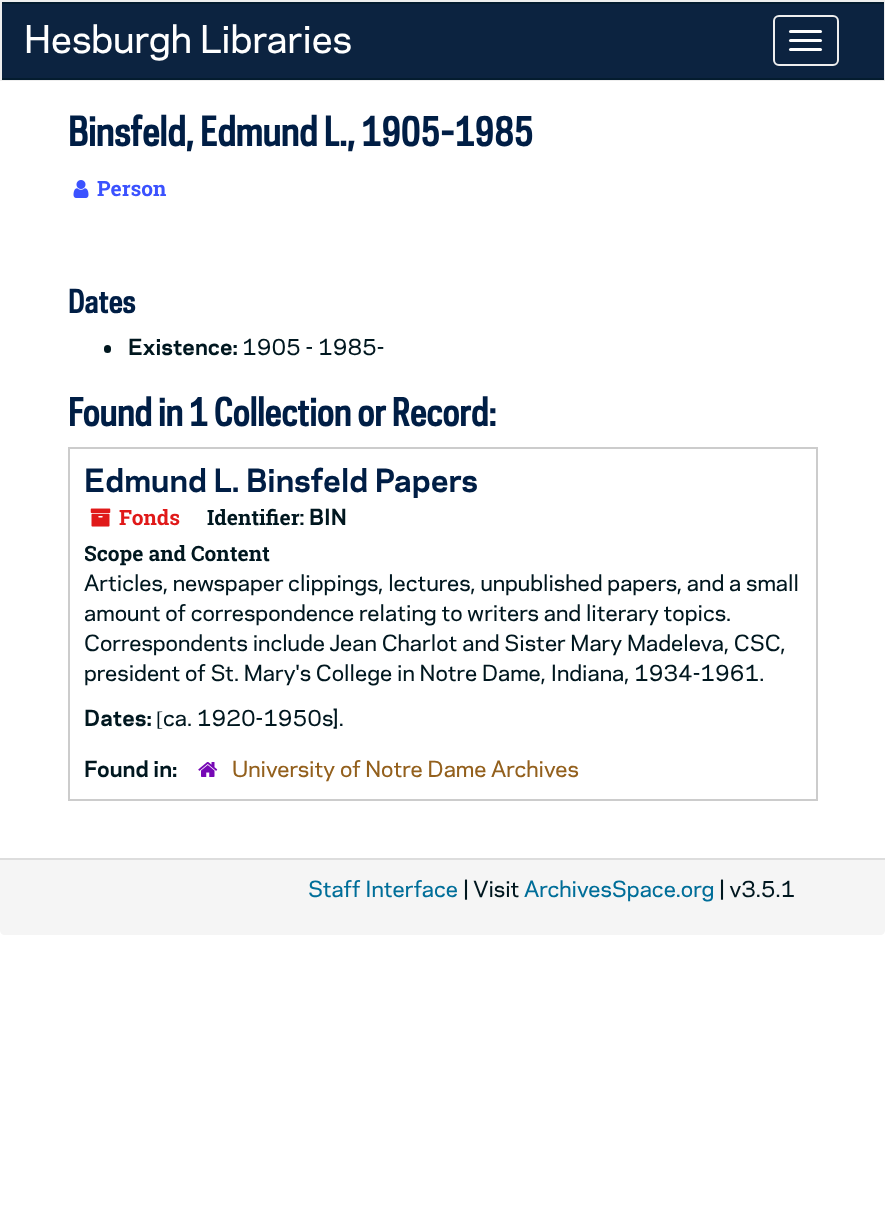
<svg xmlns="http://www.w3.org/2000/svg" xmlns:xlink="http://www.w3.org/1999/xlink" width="885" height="1214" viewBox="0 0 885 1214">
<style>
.cls-1{font:36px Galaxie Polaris;fill:#ffffff}
.cls-2{font:bold 37.75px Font;fill:#001e45}
.cls-3{font:bold 21px Roboto Slab;fill:#3b52ff}
.cls-4{font:bold 30px Font;fill:#001e45}
.cls-5{font:bold 21px Galaxie Polaris;fill:#00171f}
.cls-6{font:21px Galaxie Polaris;fill:#00171f}
.cls-7{font:bold 36px Font;fill:#001e45}
.cls-8{font:bold 30px Galaxie Polaris;fill:#001e45}
.cls-9{font:bold 21px Roboto Slab;fill:#e01919}
.cls-10{font:bold 21px Roboto Slab;fill:#00171f}
.cls-11{font:21px Liberation Serif;fill:#00171f}
.cls-12{font:21px Galaxie Polaris;fill:#93601d}
.cls-13{font:21px Galaxie Polaris;fill:#006e99}
</style>
<rect width="100%" height="100%" fill="#ffffff"/>
<rect fill="#eeeeee" x="0" y="0" width="885" height="81"/>
<rect fill="#0c2340" x="2" y="4" width="882" height="74"/>
<rect fill="#041c2f" x="2" y="2" width="882" height="2"/>
<rect fill="#041c2f" x="2" y="78" width="882" height="2"/>
<rect fill="none" stroke="#eeeeee" stroke-width="2" x="774" y="16" width="64" height="49" rx="5"/>
<rect fill="#ffffff" x="789" y="30" width="33" height="3" rx="1.5"/>
<rect fill="#ffffff" x="789" y="39" width="33" height="3" rx="1.5"/>
<rect fill="#ffffff" x="789" y="48" width="33" height="3" rx="1.5"/>
<image xlink:href="image0.png" x="73" y="180" width="16" height="18"/>
<rect fill="#00171f" x="104" y="345" width="7" height="8" rx="3.5"/>
<rect fill="none" stroke="#cccccc" stroke-width="2" x="69" y="448" width="748" height="352"/>
<image xlink:href="image1.png" x="90" y="508" width="21" height="19"/>
<image xlink:href="image2.png" x="198" y="762" width="20" height="15"/>
<path fill="#f5f5f5" d="M0 858H885V930C885 933 883 935 880 935H5C2 935 0 933 0 930Z"/>
<rect fill="#dddddd" x="0" y="858" width="885" height="2"/>
<text class="cls-1" x="24" y="53">Hesburgh Libraries</text>
<text class="cls-2" x="68" y="146">Binsfeld, Edmund L., 1905-1985</text>
<text class="cls-3" x="97" y="196">Person</text>
<text class="cls-4" x="68" y="313">Dates</text>
<text class="cls-5" x="128" y="355">Existence:</text>
<text class="cls-6" x="242" y="355">1905 - 1985-</text>
<text class="cls-7" x="68" y="426">Found in 1 Collection or Record:</text>
<text class="cls-8" x="84" y="492">Edmund L. Binsfeld Papers</text>
<text class="cls-9" x="119" y="525">Fonds</text>
<text class="cls-10" x="207" y="525">Identifier:</text>
<text class="cls-5" x="309" y="525">BIN</text>
<text class="cls-10" x="84" y="561">Scope and Content</text>
<text class="cls-6"><tspan x="84" y="591">Articles, newspaper clippings, lectures, unpublished papers, and a small</tspan><tspan x="84" y="621">amount of correspondence relating to writers and literary topics.</tspan><tspan x="84" y="651">Correspondents include Jean Charlot and Sister Mary Madeleva, CSC,</tspan><tspan x="84" y="681">president of St. Mary's College in Notre Dame, Indiana, 1934-1961.</tspan></text>
<text class="cls-5" x="84" y="726">Dates:</text>
<text class="cls-11" x="156" y="726">[</text>
<text class="cls-6" x="163" y="726">ca. 1920-1950s].</text>
<text class="cls-5" x="84" y="777">Found in:</text>
<text class="cls-12" x="232" y="777">University of Notre Dame Archives</text>
<text class="cls-13" x="308" y="897">Staff Interface</text>
<text class="cls-6" x="463" y="897">| Visit</text>
<text class="cls-13" x="524" y="897">ArchivesSpace.org</text>
<text class="cls-6" x="719" y="897">| v3.5.1</text>
</svg>
